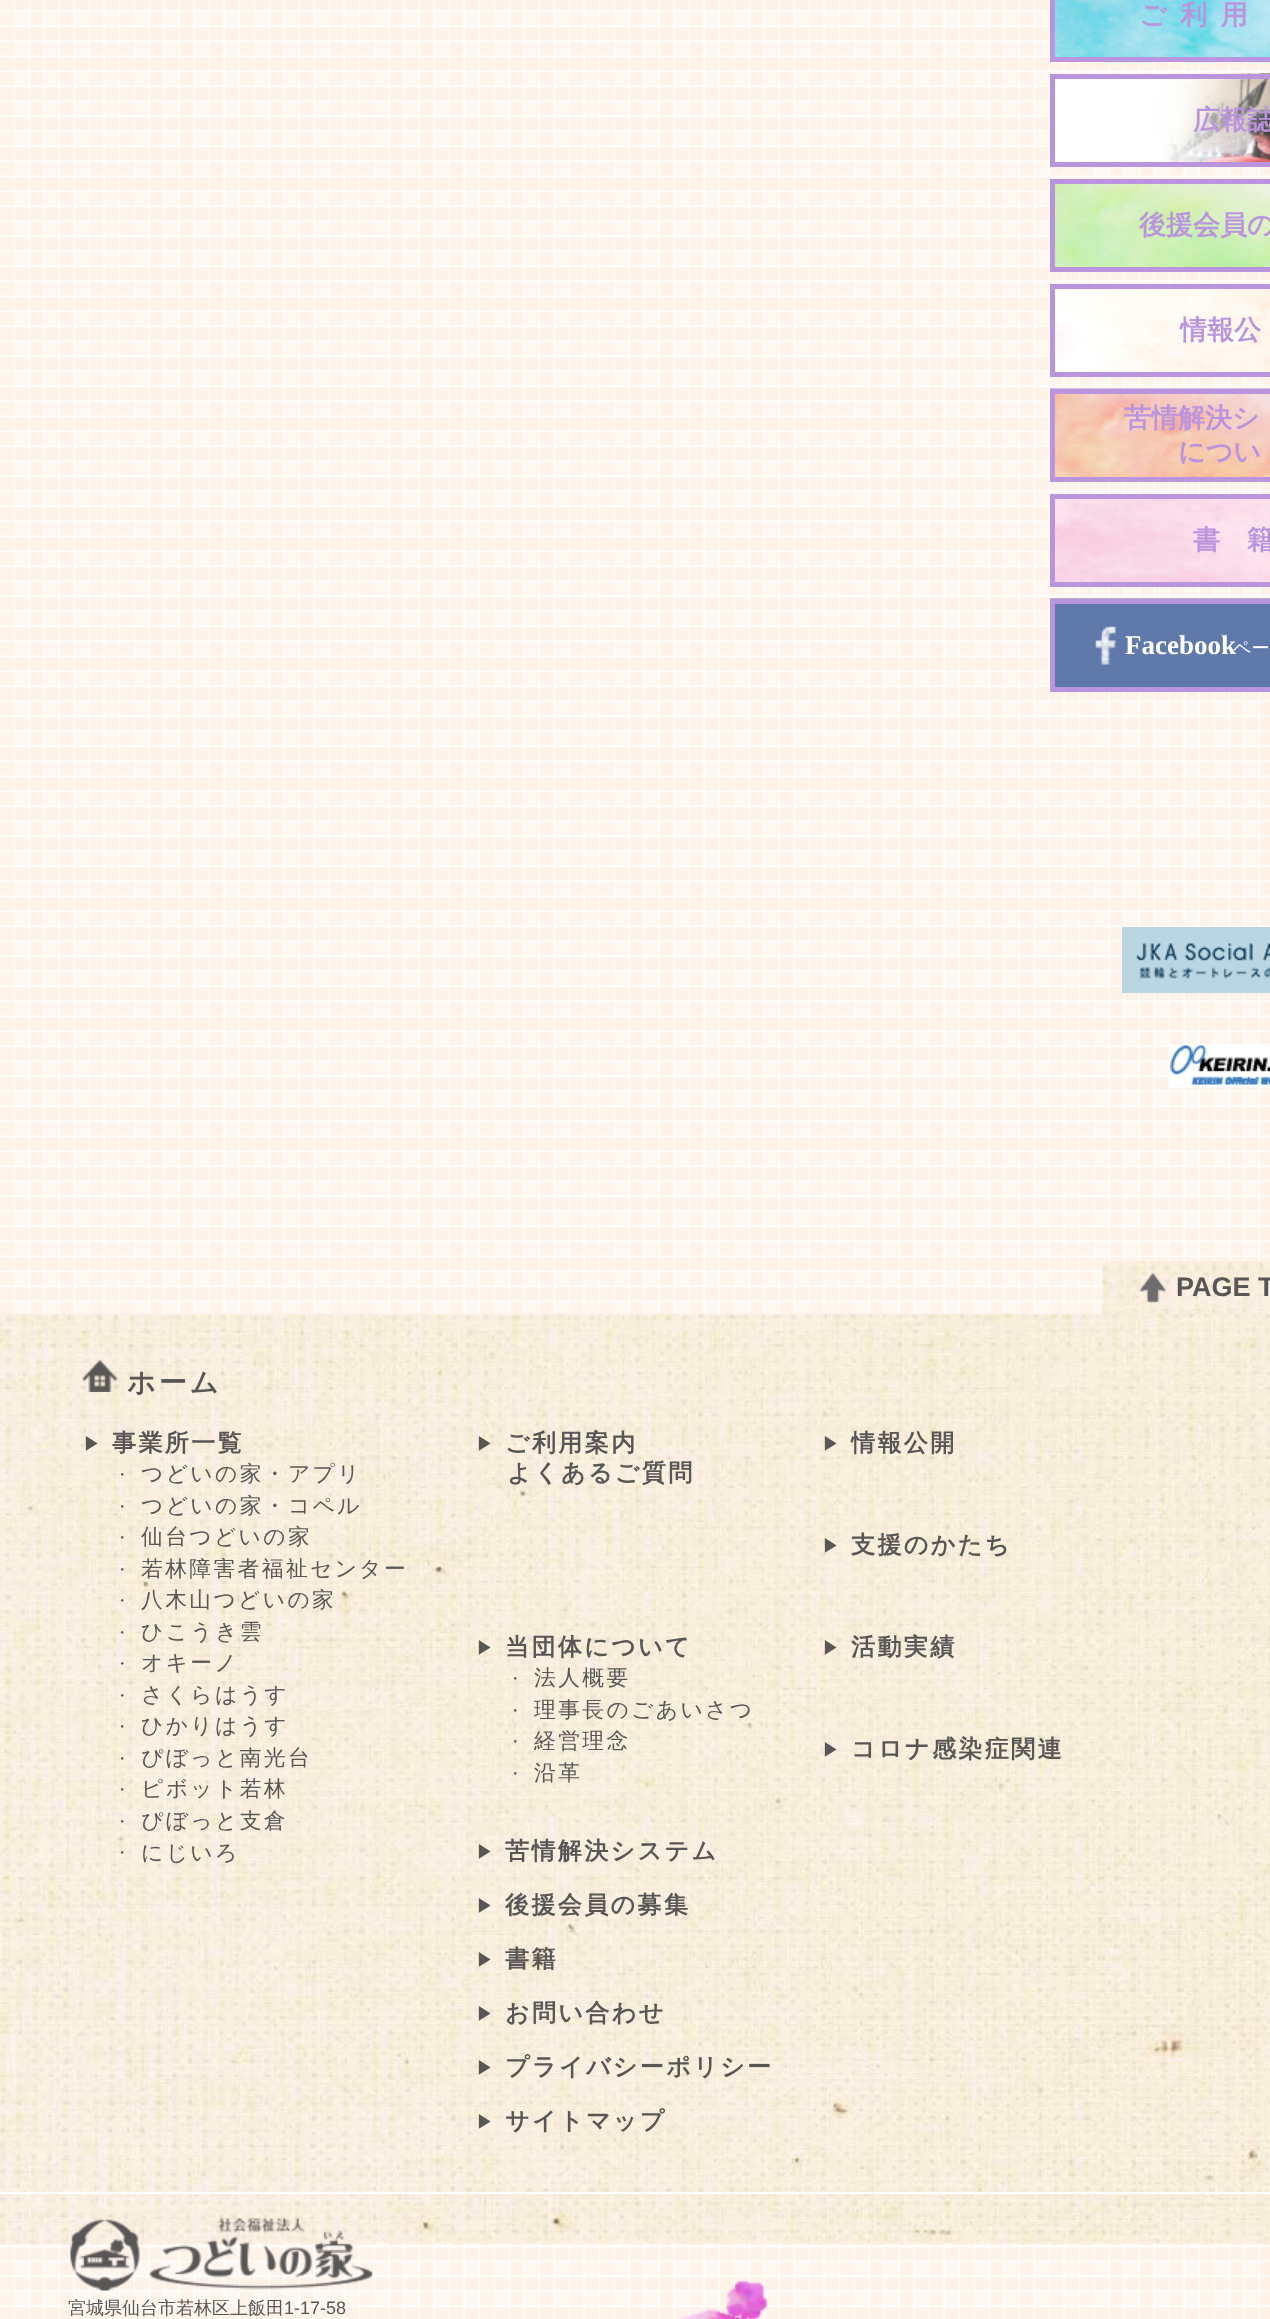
<svg xmlns="http://www.w3.org/2000/svg" xmlns:xlink="http://www.w3.org/1999/xlink" width="1270" height="2319" viewBox="0 0 1270 2319">
<style>
.cls-1{font:bold 27px WenQuanYi Zen Hei;letter-spacing:13.5px;fill:#bb94de}
.cls-2{font:bold 27px WenQuanYi Zen Hei;fill:#bb94de}
.cls-3{font:bold 27px WenQuanYi Zen Hei;letter-spacing:27px;fill:#bb94de}
.cls-4{font:bold 27px Liberation Serif;fill:#ffffff}
.cls-5{font:500 18px WenQuanYi Zen Hei;fill:#ffffff}
.cls-6{font:bold 27px Liberation Sans;fill:#595656}
.cls-7{font:bold 28px WenQuanYi Zen Hei;letter-spacing:3px;fill:#595656}
.cls-8{font:500 18px WenQuanYi Zen Hei;letter-spacing:2.4px;fill:#595656}
.cls-9{font:bold 24px WenQuanYi Zen Hei;letter-spacing:2.4px;fill:#595656}
.cls-10{font:500 16px WenQuanYi Zen Hei;letter-spacing:2.4px;fill:#595656}
.cls-11{font:500 21.75px WenQuanYi Zen Hei;letter-spacing:2.4px;fill:#595656}
.cls-12{font:500 18px WenQuanYi Zen Hei;fill:#595656}
.cls-13{font:18px Liberation Sans;fill:#595656}
</style>
<rect width="100%" height="100%" fill="#ffffff"/>
<image xlink:href="image0.png" x="0" y="0" width="1270" height="2319"/>
<image xlink:href="image1.png" x="1055" y="0" width="215" height="57"/>
<rect fill="none" stroke="#bb94de" stroke-width="5" x="1052.5" y="-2.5" width="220" height="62"/>
<image xlink:href="image2.png" x="1050" y="73" width="220" height="89"/>
<rect fill="none" stroke="#bb94de" stroke-width="5" x="1052.5" y="76.5" width="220" height="88"/>
<image xlink:href="image3.png" x="1055" y="184" width="215" height="83"/>
<rect fill="none" stroke="#bb94de" stroke-width="5" x="1052.5" y="181.5" width="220" height="88"/>
<image xlink:href="image4.png" x="1055" y="289" width="215" height="83"/>
<rect fill="none" stroke="#bb94de" stroke-width="5" x="1052.5" y="286.5" width="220" height="88"/>
<image xlink:href="image5.png" x="1050" y="388" width="220" height="89"/>
<rect fill="none" stroke="#bb94de" stroke-width="5" x="1052.5" y="391.5" width="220" height="88"/>
<image xlink:href="image6.png" x="1055" y="499" width="215" height="83"/>
<rect fill="none" stroke="#bb94de" stroke-width="5" x="1052.5" y="496.5" width="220" height="88"/>
<image xlink:href="image7.png" x="1050" y="598" width="220" height="89"/>
<rect fill="none" stroke="#bb94de" stroke-width="5" x="1052.5" y="601.5" width="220" height="88"/>
<image xlink:href="image8.png" x="1122" y="927" width="148" height="66"/>
<image xlink:href="image9.png" x="1170" y="1044" width="100" height="44"/>
<image xlink:href="image10.png" x="0" y="1314" width="1270" height="1005"/>
<image xlink:href="image11.png" x="1102" y="1261" width="168" height="53"/>
<image xlink:href="image12.png" x="1139" y="1273" width="27" height="30"/>
<image xlink:href="image13.png" x="82" y="1360" width="36" height="32"/>
<rect fill="#ffffff" x="0" y="2192" width="1270" height="2"/>
<image xlink:href="image14.png" x="70" y="2218" width="303" height="73"/>
<text class="cls-1" x="1139" y="24">ご利用</text>
<text class="cls-2" x="1193" y="129">広報誌</text>
<text class="cls-2" x="1139" y="234">後援会員の</text>
<text class="cls-2" x="1180" y="339">情報公</text>
<text class="cls-2" x="1124" y="427">苦情解決シ</text>
<text class="cls-2" x="1178" y="461">につい</text>
<text class="cls-3" x="1193" y="549">書籍</text>
<text class="cls-4" x="1125" y="654">Facebook</text>
<text class="cls-5" x="1233" y="654">ペー</text>
<text class="cls-6" x="1176" y="1296">PAGE T</text>
<text class="cls-7" x="127" y="1392">ホーム</text>
<text class="cls-8" x="83" y="1450">▶</text>
<text class="cls-9" x="112" y="1451">事業所一覧</text>
<text class="cls-10" x="114" y="1480">・</text>
<text class="cls-11" x="141" y="1481">つどいの家・アプリ</text>
<text class="cls-10" x="114" y="1512">・</text>
<text class="cls-11" x="141" y="1513">つどいの家・コペル</text>
<text class="cls-10" x="114" y="1543">・</text>
<text class="cls-11" x="141" y="1544">仙台つどいの家</text>
<text class="cls-10" x="114" y="1575">・</text>
<text class="cls-11" x="141" y="1576">若林障害者福祉センター</text>
<text class="cls-10" x="114" y="1606">・</text>
<text class="cls-11" x="141" y="1607">八木山つどいの家</text>
<text class="cls-10" x="114" y="1638">・</text>
<text class="cls-11" x="141" y="1639">ひこうき雲</text>
<text class="cls-10" x="114" y="1669">・</text>
<text class="cls-11" x="141" y="1670">オキーノ</text>
<text class="cls-10" x="114" y="1701">・</text>
<text class="cls-11" x="141" y="1702">さくらはうす</text>
<text class="cls-10" x="114" y="1732">・</text>
<text class="cls-11" x="141" y="1733">ひかりはうす</text>
<text class="cls-10" x="114" y="1764">・</text>
<text class="cls-11" x="141" y="1765">ぴぼっと南光台</text>
<text class="cls-10" x="114" y="1795">・</text>
<text class="cls-11" x="141" y="1796">ピボット若林</text>
<text class="cls-10" x="114" y="1827">・</text>
<text class="cls-11" x="141" y="1828">ぴぼっと支倉</text>
<text class="cls-10" x="114" y="1858">・</text>
<text class="cls-11" x="141" y="1860">にじいろ</text>
<text class="cls-8" x="476" y="1450">▶</text>
<text class="cls-9" x="505" y="1451">ご利用案内</text>
<text class="cls-9" x="507" y="1481">よくあるご質問</text>
<text class="cls-8" x="476" y="1654">▶</text>
<text class="cls-9" x="505" y="1655">当団体について</text>
<text class="cls-10" x="507" y="1684">・</text>
<text class="cls-11" x="534" y="1685">法人概要</text>
<text class="cls-10" x="507" y="1716">・</text>
<text class="cls-11" x="534" y="1717">理事長のごあいさつ</text>
<text class="cls-10" x="507" y="1747">・</text>
<text class="cls-11" x="534" y="1748">経営理念</text>
<text class="cls-10" x="507" y="1779">・</text>
<text class="cls-11" x="534" y="1780">沿革</text>
<text class="cls-8" x="822" y="1450">▶</text>
<text class="cls-9" x="851" y="1451">情報公開</text>
<text class="cls-8" x="822" y="1552">▶</text>
<text class="cls-9" x="851" y="1553">支援のかたち</text>
<text class="cls-8" x="822" y="1654">▶</text>
<text class="cls-9" x="851" y="1655">活動実績</text>
<text class="cls-8" x="822" y="1756">▶</text>
<text class="cls-9" x="851" y="1757">コロナ感染症関連</text>
<text class="cls-8" x="476" y="1858">▶</text>
<text class="cls-9" x="505" y="1859">苦情解決システム</text>
<text class="cls-8" x="476" y="1912">▶</text>
<text class="cls-9" x="505" y="1913">後援会員の募集</text>
<text class="cls-8" x="476" y="1966">▶</text>
<text class="cls-9" x="505" y="1967">書籍</text>
<text class="cls-8" x="476" y="2020">▶</text>
<text class="cls-9" x="505" y="2021">お問い合わせ</text>
<text class="cls-8" x="476" y="2074">▶</text>
<text class="cls-9" x="505" y="2075">プライバシーポリシー</text>
<text class="cls-8" x="476" y="2128">▶</text>
<text class="cls-9" x="505" y="2129">サイトマップ</text>
<text class="cls-12" x="68" y="2314">宮城県仙台市若林区上飯田</text>
<text class="cls-13" x="284" y="2314">1-17-58</text>
</svg>
